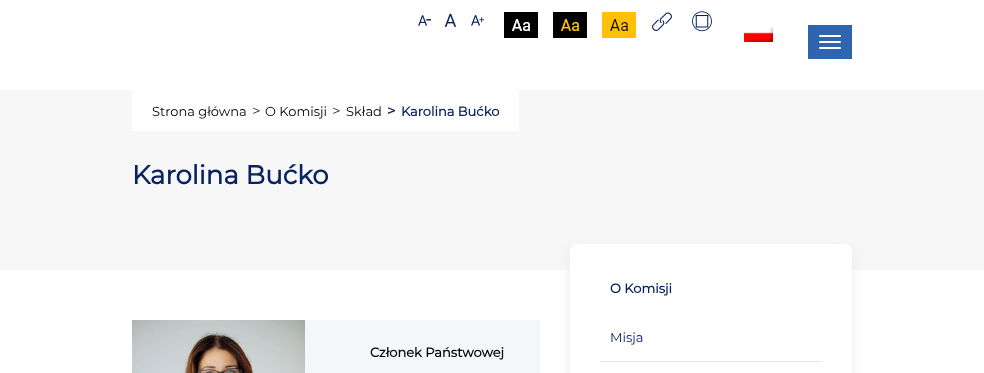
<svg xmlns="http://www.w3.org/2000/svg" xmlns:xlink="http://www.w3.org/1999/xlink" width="984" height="373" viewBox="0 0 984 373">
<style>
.cls-1{font:100 13px Montserrat;fill:#000000}
.cls-2{font:100 15px Montserrat;fill:#092360}
.cls-3{font:bold 15px Montserrat;fill:#092360}
.cls-4{font:bold 13px Montserrat;fill:#092360}
.cls-5{font:bold 26px Montserrat;fill:#092360}
.cls-6{font:100 13px Montserrat;fill:#092360}
.cls-7{font:bold 13px Montserrat;fill:#000000}
</style>
<rect width="100%" height="100%" fill="#ffffff"/>
<image xlink:href="image0.png" x="418" y="15" width="13" height="11"/>
<image xlink:href="image1.png" x="444" y="13" width="13" height="14"/>
<image xlink:href="image2.png" x="471" y="15" width="13" height="11"/>
<image xlink:href="image3.png" x="504" y="12" width="34" height="26"/>
<image xlink:href="image4.png" x="553" y="12" width="34" height="26"/>
<image xlink:href="image5.png" x="602" y="12" width="34" height="26"/>
<image xlink:href="image6.png" x="652" y="12" width="20" height="19"/>
<image xlink:href="image7.png" x="692" y="11" width="20" height="21"/>
<image xlink:href="image8.png" x="744" y="27" width="29" height="15"/>
<rect fill="#2f65ae" x="808" y="25" width="44" height="34"/>
<rect fill="#ffffff" x="819" y="35" width="22" height="2" rx="1"/>
<rect fill="#ffffff" x="819" y="41" width="22" height="2" rx="1"/>
<rect fill="#ffffff" x="819" y="47" width="22" height="2" rx="1"/>
<rect fill="#f7f7f7" x="0" y="90" width="984" height="180"/>
<rect fill="#ffffff" x="132" y="90" width="387" height="41"/>
<rect fill="#e9e9e9" filter="blur(6px)" x="570" y="248" width="282" height="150" rx="7"/>
<rect fill="#ffffff" x="570" y="244" width="282" height="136" rx="7"/>
<rect fill="#e7e7e7" x="600" y="361" width="222" height="1"/>
<rect fill="#f4f6f8" x="305" y="320" width="235" height="53"/>
<image xlink:href="image9.png" x="132" y="320" width="173" height="53"/>
<text class="cls-1" x="152" y="116">Strona główna</text>
<text class="cls-2" x="252" y="116">&gt;</text>
<text class="cls-1" x="265" y="116">O Komisji</text>
<text class="cls-2" x="332" y="116">&gt;</text>
<text class="cls-1" x="346" y="116">Skład</text>
<text class="cls-3" x="387" y="116">&gt;</text>
<text class="cls-4" x="401" y="116">Karolina Bućko</text>
<text class="cls-5" x="132" y="184">Karolina Bućko</text>
<text class="cls-4" x="610" y="293">O Komisji</text>
<text class="cls-6" x="610" y="342">Misja</text>
<text class="cls-7" x="370" y="357">Członek Państwowej</text>
</svg>
